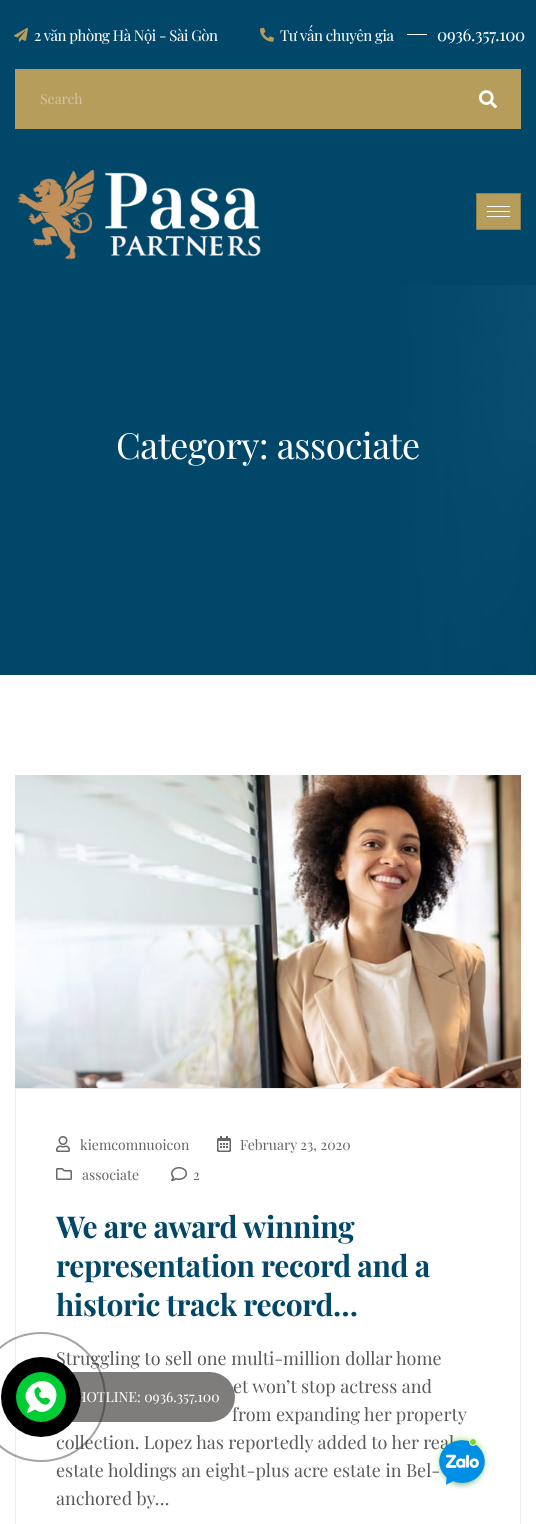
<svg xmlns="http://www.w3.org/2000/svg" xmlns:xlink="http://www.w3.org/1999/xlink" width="536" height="1524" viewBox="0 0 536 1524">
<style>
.cls-1{font:15px Playfair Display;letter-spacing:-0.45px;fill:#ffffff}
.cls-2{font:17px Playfair Display;letter-spacing:-0.3px;fill:#ffffff}
.cls-3{font:14px Playfair Display;fill:#d4c49d}
.cls-4{font:36px Playfair Display;letter-spacing:-0.4px;fill:#ffffff}
.cls-5{font:14px Playfair Display;fill:#666666}
.cls-6{font:bold 30px Playfair Display;letter-spacing:-0.4px;fill:#01476a}
.cls-7{font:18px Playfair Display;fill:#5a5a5a}
.cls-8{font:14px Playfair Display;fill:#ffffff}
</style>
<rect width="100%" height="100%" fill="#ffffff"/>
<rect fill="#01476a" x="0" y="0" width="536" height="285"/>
<image xlink:href="image0.png" x="14" y="27" width="14" height="15"/>
<image xlink:href="image1.png" x="260" y="27" width="14" height="15"/>
<rect fill="#ffffff" x="407" y="34" width="20" height="1"/>
<rect fill="#b79d5b" x="15" y="69" width="506" height="60"/>
<image xlink:href="image2.png" x="479" y="90" width="18" height="19"/>
<image xlink:href="image3.png" x="18" y="169" width="243" height="91"/>
<rect fill="#b79d5b" stroke="#927e49" x="476.5" y="193.5" width="44" height="36"/>
<rect fill="#ffffff" x="487" y="206" width="23" height="1"/>
<rect fill="#ffffff" x="487" y="211" width="23" height="1"/>
<rect fill="#ffffff" x="487" y="216" width="23" height="1"/>
<image xlink:href="image4.png" x="0" y="285" width="536" height="390"/>
<image xlink:href="image5.png" x="15" y="775" width="506" height="313"/>
<rect fill="none" stroke="#ededed" x="15.5" y="1088.5" width="505" height="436"/>
<image xlink:href="image6.png" x="56" y="1136" width="14" height="16"/>
<image xlink:href="image7.png" x="217" y="1136" width="14" height="16"/>
<image xlink:href="image8.png" x="56" y="1168" width="16" height="12"/>
<image xlink:href="image9.png" x="171" y="1167" width="16" height="14"/>
<rect fill="#7ed321" filter="blur(4px)" x="442" y="1441" width="40" height="40" rx="20"/>
<text class="cls-1" x="34" y="41">2 văn phòng Hà Nội - Sài Gòn</text>
<text class="cls-1" x="280" y="41">Tư vấn chuyên gia</text>
<text class="cls-2" x="437" y="41">0936.357.100</text>
<text class="cls-3" x="40" y="104">Search</text>
<text class="cls-4" x="116" y="459">Category: associate</text>
<text class="cls-5" x="80" y="1150">kiemcomnuoicon</text>
<text class="cls-5" x="240" y="1150">February 23, 2020</text>
<text class="cls-5" x="82" y="1180">associate</text>
<text class="cls-5" x="193" y="1180">2</text>
<text class="cls-6"><tspan x="56" y="1238">We are award winning</tspan><tspan x="56" y="1277">representation record and a</tspan><tspan x="56" y="1316">historic track record…</tspan></text>
<text class="cls-7" x="56" y="1365">Struggling to sell one multi-million dollar home</text>
<text class="cls-7" x="233" y="1393">et won’t stop actress and</text>
<text class="cls-7" x="232" y="1421">from expanding her property</text>
<text class="cls-7"><tspan x="56" y="1449">collection. Lopez has reportedly added to her real</tspan><tspan x="56" y="1477">estate holdings an eight-plus acre estate in Bel-</tspan><tspan x="56" y="1505">anchored by…</tspan></text>
<rect fill="#7f7c7c" x="16" y="1372" width="219" height="50" rx="25"/>
<text class="cls-8" x="76" y="1402">HOTLINE: 0936.357.100</text>
<circle fill="none" stroke="#1e1e1e" stroke-opacity="0.4" stroke-width="2" cx="41" cy="1397" r="64"/>
<circle fill="#000000" cx="41" cy="1397" r="40"/>
<circle fill="#00cc33" cx="41" cy="1397" r="25"/>
<image xlink:href="image10.png" x="25" y="1381" width="32" height="32"/>
<image xlink:href="image11.png" x="437" y="1440" width="50" height="49"/>
<circle fill="#7ed321" stroke="#ffffff" cx="473" cy="1442" r="3.5"/>
</svg>
